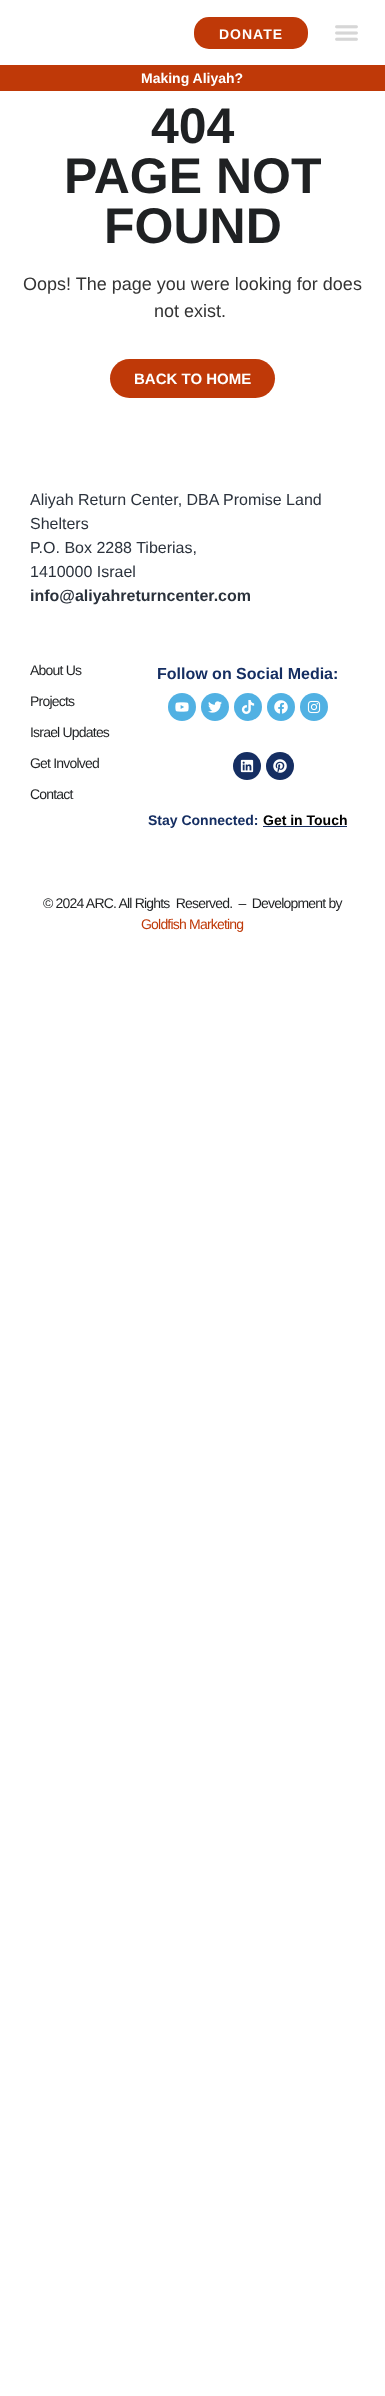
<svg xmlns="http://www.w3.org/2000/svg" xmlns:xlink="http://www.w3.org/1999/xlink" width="385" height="2396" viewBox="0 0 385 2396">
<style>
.cls-1{font:bold 14px Liberation Sans;letter-spacing:1px;fill:#ffffff}
.cls-2{font:bold 14px Liberation Sans;fill:#ffffff}
.cls-3{font:bold 50px Liberation Sans;fill:#1f2123}
.cls-4{font:18px Liberation Sans;fill:#333333}
.cls-5{font:bold 15px Liberation Sans;fill:#ffffff}
.cls-6{font:16px Liberation Sans;fill:#2b323c}
.cls-7{font:bold 16px Liberation Sans;fill:#2b323c}
.cls-8{font:14px Liberation Sans;letter-spacing:-0.8px;fill:#1f2123}
.cls-9{font:bold 16px Liberation Sans;fill:#152e62}
.cls-10{font:bold 14px Liberation Sans;fill:#152e62}
.cls-11{font:bold 14px Liberation Sans;fill:#000000}
.cls-12{font:14px Liberation Sans;letter-spacing:-0.8px;fill:#bf3908}
</style>
<rect width="100%" height="100%" fill="#ffffff"/>
<rect fill="#bf3908" x="194" y="17" width="114" height="32" rx="15"/>
<image xlink:href="image0.png" x="335" y="25" width="23" height="16"/>
<rect fill="#bf3908" x="0" y="65" width="385" height="26"/>
<rect fill="#bf3908" x="110" y="359" width="165" height="39" rx="19.5"/>
<circle fill="#51b1e3" cx="182" cy="707" r="14"/>
<image xlink:href="image1.png" x="175" y="702" width="14" height="10"/>
<circle fill="#51b1e3" cx="215" cy="707" r="14"/>
<image xlink:href="image2.png" x="208" y="701" width="14" height="12"/>
<circle fill="#51b1e3" cx="248" cy="707" r="14"/>
<image xlink:href="image3.png" x="241" y="700" width="14" height="14"/>
<circle fill="#51b1e3" cx="281" cy="707" r="14"/>
<image xlink:href="image4.png" x="274" y="700" width="14" height="14"/>
<circle fill="#51b1e3" cx="314" cy="707" r="14"/>
<image xlink:href="image5.png" x="307" y="700" width="14" height="14"/>
<circle fill="#152e62" cx="247" cy="766" r="14"/>
<image xlink:href="image6.png" x="240" y="759" width="14" height="14"/>
<circle fill="#152e62" cx="280" cy="766" r="14"/>
<image xlink:href="image7.png" x="273" y="759" width="14" height="14"/>
<rect fill="#152e62" x="263" y="826" width="84" height="1"/>
<text class="cls-1" x="219" y="39">DONATE</text>
<text class="cls-2" x="141" y="83">Making Aliyah?</text>
<text class="cls-3" x="151" y="143">404</text>
<text class="cls-3" x="64" y="193">PAGE NOT</text>
<text class="cls-3" x="104" y="243">FOUND</text>
<text class="cls-4" x="23" y="290">Oops! The page you were looking for does</text>
<text class="cls-4" x="154" y="317">not exist.</text>
<text class="cls-5" x="134" y="384">BACK TO HOME</text>
<text class="cls-6"><tspan x="30" y="505">Aliyah Return Center, DBA Promise Land</tspan><tspan x="30" y="529">Shelters</tspan><tspan x="30" y="553">P.O. Box 2288 Tiberias,</tspan><tspan x="30" y="577">1410000 Israel</tspan></text>
<text class="cls-7" x="30" y="601">info@aliyahreturncenter.com</text>
<text class="cls-8" x="30" y="675">About Us</text>
<text class="cls-8" x="30" y="706">Projects</text>
<text class="cls-8" x="30" y="737">Israel Updates</text>
<text class="cls-8" x="30" y="768">Get Involved</text>
<text class="cls-8" x="30" y="799">Contact</text>
<text class="cls-9" x="157" y="679">Follow on Social Media:</text>
<text class="cls-10" x="148" y="825">Stay Connected:</text>
<text class="cls-11" x="263" y="825">Get in Touch</text>
<text class="cls-8" xml:space="preserve" x="43" y="908">© 2024 ARC. All Rights  Reserved.  –  Development by</text>
<text class="cls-12" x="141" y="929">Goldfish Marketing</text>
</svg>
